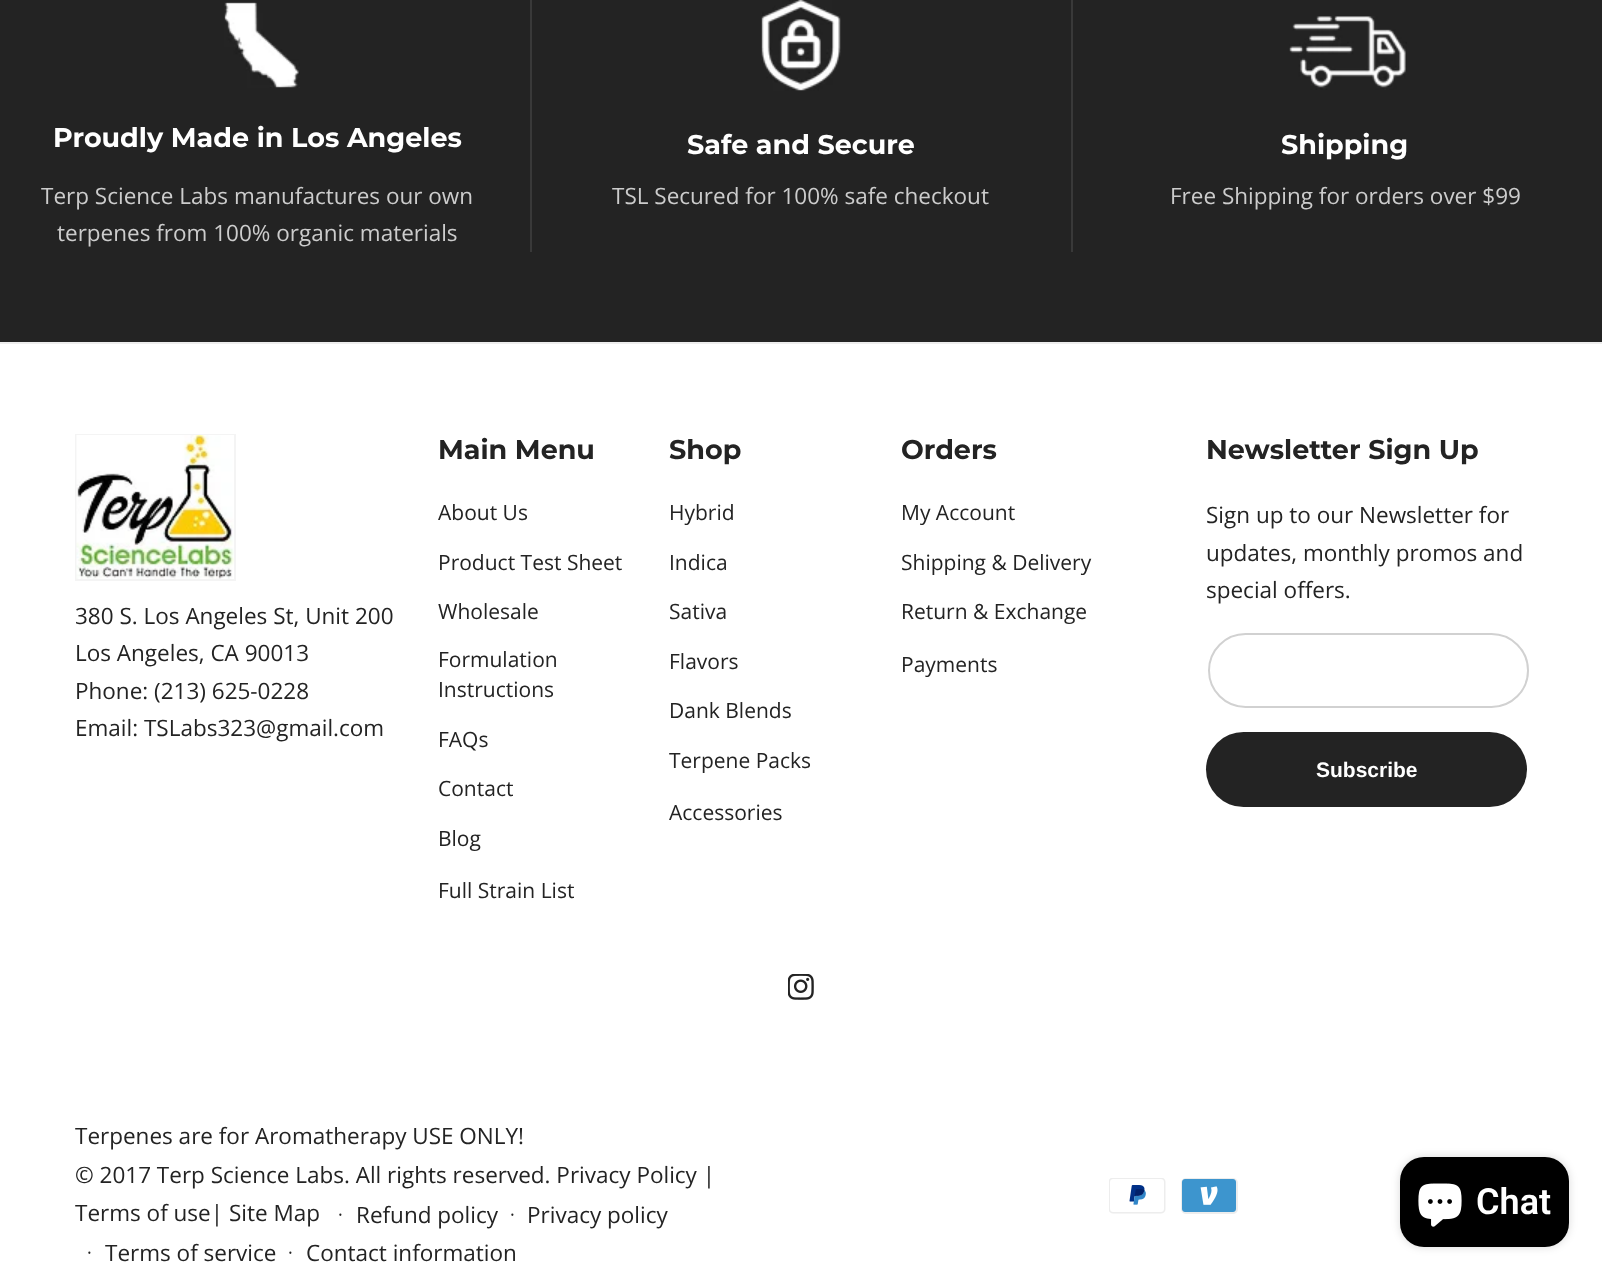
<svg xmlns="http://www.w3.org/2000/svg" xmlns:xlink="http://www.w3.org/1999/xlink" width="1602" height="1278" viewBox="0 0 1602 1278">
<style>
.cls-1{font:bold 27px Montserrat;fill:#ffffff}
.cls-2{font:22.5px Open Sans;fill:#cccccc}
.cls-3{font:22.5px Open Sans;fill:#232323}
.cls-4{font:bold 27px Montserrat;fill:#232323}
.cls-5{font:21px Open Sans;fill:#232323}
.cls-6{font:bold 21px Liberation Sans;fill:#ffffff}
.cls-7{font:18px Open Sans;letter-spacing:1px;fill:#232323}
.cls-8{font:600 36px Roboto;fill:#ffffff}
</style>
<rect width="100%" height="100%" fill="#ffffff"/>
<rect fill="#232323" x="0" y="0" width="1602" height="342"/>
<image xlink:href="image0.png" x="224" y="2" width="76" height="86"/>
<rect fill="#393939" x="1071" y="0" width="2" height="252"/>
<rect fill="#393939" x="530" y="0" width="2" height="252"/>
<image xlink:href="image1.png" x="761" y="0" width="80" height="91"/>
<image xlink:href="image2.png" x="1289" y="16" width="118" height="74"/>
<rect fill="#ededed" x="0" y="342" width="1602" height="2"/>
<rect fill="none" stroke="#f4f4f4" stroke-width="2" x="76" y="435" width="159" height="145"/>
<image xlink:href="image3.png" x="76" y="435" width="158" height="144"/>
<rect fill="none" stroke="#d1d1d1" stroke-width="2" x="1209" y="634" width="319" height="73" rx="36.5"/>
<rect fill="#232323" x="1206" y="732" width="321" height="75" rx="37.5"/>
<image xlink:href="image4.png" x="788" y="974" width="26" height="26"/>
<image xlink:href="image5.png" x="1109" y="1178" width="57" height="36"/>
<image xlink:href="image6.png" x="1181" y="1178" width="57" height="36"/>
<rect fill="#000000" fill-opacity="0.15" filter="blur(4px)" x="1400" y="1157" width="169" height="90" rx="24"/>
<rect fill="#000000" x="1400" y="1157" width="169" height="90" rx="24"/>
<image xlink:href="image7.png" x="1418" y="1183" width="44" height="44"/>
<text class="cls-1" x="53" y="147">Proudly Made in Los Angeles</text>
<text class="cls-2" x="41" y="204">Terp Science Labs manufactures our own</text>
<text class="cls-2" x="57" y="241">terpenes from 100% organic materials</text>
<text class="cls-1" x="687" y="154">Safe and Secure</text>
<text class="cls-2" x="612" y="204">TSL Secured for 100% safe checkout</text>
<text class="cls-1" x="1281" y="154">Shipping</text>
<text class="cls-2" x="1170" y="204">Free Shipping for orders over $99</text>
<text class="cls-3"><tspan x="75" y="624">380 S. Los Angeles St, Unit 200</tspan><tspan x="75" y="661">Los Angeles, CA 90013</tspan><tspan x="75" y="699">Phone: (213) 625-0228</tspan><tspan x="75" y="736">Email: TSLabs323@gmail.com</tspan></text>
<text class="cls-4" x="438" y="459">Main Menu</text>
<text class="cls-5" x="438" y="520">About Us</text>
<text class="cls-5" x="438" y="570">Product Test Sheet</text>
<text class="cls-5" x="438" y="619">Wholesale</text>
<text class="cls-5"><tspan x="438" y="667">Formulation</tspan><tspan x="438" y="697">Instructions</tspan></text>
<text class="cls-5" x="438" y="747">FAQs</text>
<text class="cls-5" x="438" y="796">Contact</text>
<text class="cls-5" x="438" y="846">Blog</text>
<text class="cls-5" x="438" y="898">Full Strain List</text>
<text class="cls-4" x="669" y="459">Shop</text>
<text class="cls-5" x="669" y="520">Hybrid</text>
<text class="cls-5" x="669" y="570">Indica</text>
<text class="cls-5" x="669" y="619">Sativa</text>
<text class="cls-5" x="669" y="669">Flavors</text>
<text class="cls-5" x="669" y="718">Dank Blends</text>
<text class="cls-5" x="669" y="768">Terpene Packs</text>
<text class="cls-5" x="669" y="820">Accessories</text>
<text class="cls-4" x="901" y="459">Orders</text>
<text class="cls-5" x="901" y="520">My Account</text>
<text class="cls-5" x="901" y="570">Shipping &amp; Delivery</text>
<text class="cls-5" x="901" y="619">Return &amp; Exchange</text>
<text class="cls-5" x="901" y="672">Payments</text>
<text class="cls-4" x="1206" y="459">Newsletter Sign Up</text>
<text class="cls-3"><tspan x="1206" y="523">Sign up to our Newsletter for</tspan><tspan x="1206" y="561">updates, monthly promos and</tspan><tspan x="1206" y="598">special offers.</tspan></text>
<text class="cls-6" x="1316" y="777">Subscribe</text>
<text class="cls-3"><tspan x="75" y="1144">Terpenes are for Aromatherapy USE ONLY!</tspan><tspan x="75" y="1183">© 2017 Terp Science Labs. All rights reserved. Privacy Policy |</tspan><tspan x="75" y="1221">Terms of use| Site Map</tspan></text>
<text class="cls-7" x="338" y="1221">·</text>
<text class="cls-3" x="356" y="1223">Refund policy</text>
<text class="cls-7" x="510" y="1221">·</text>
<text class="cls-3" x="527" y="1223">Privacy policy</text>
<text class="cls-7" x="87" y="1259">·</text>
<text class="cls-3" x="105" y="1261">Terms of service</text>
<text class="cls-7" x="288" y="1259">·</text>
<text class="cls-3" x="306" y="1261">Contact information</text>
<text class="cls-8" x="1476" y="1214">Chat</text>
</svg>
